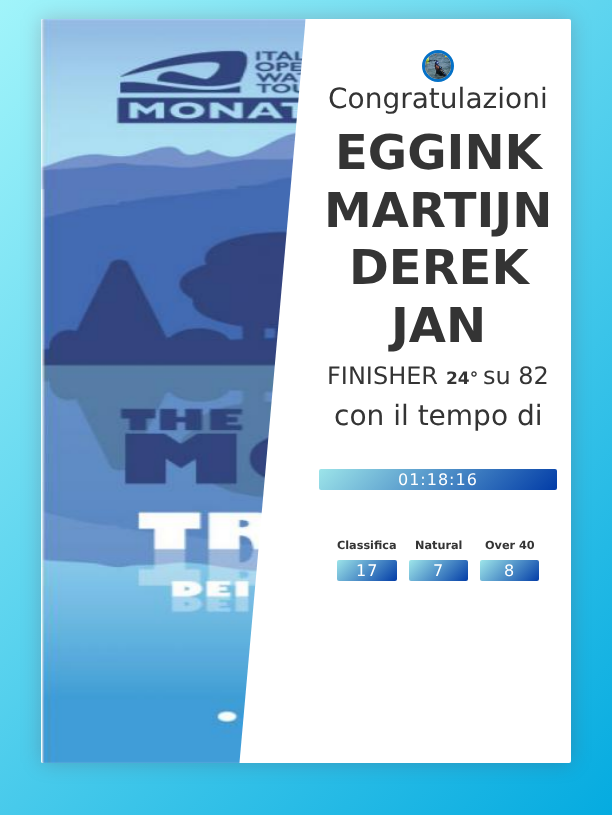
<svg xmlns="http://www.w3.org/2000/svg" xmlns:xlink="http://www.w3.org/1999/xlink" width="612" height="815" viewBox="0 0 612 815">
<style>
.cls-1{font:28px DejaVu Sans;fill:#343434}
.cls-2{font:bold 48px DejaVu Sans;fill:#343434}
.cls-3{font:24px DejaVu Sans;fill:#343434}
.cls-4{font:bold 17px DejaVu Sans;fill:#343434}
.cls-5{font:16px DejaVu Sans;letter-spacing:1px;fill:#ffffff}
.cls-6{font:bold 11.25px DejaVu Sans;fill:#343434}
</style>
<defs>
<linearGradient id="g1" gradientUnits="userSpaceOnUse" x1="-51" y1="51" x2="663" y2="764"><stop offset="0" stop-color="#a1f4fa"/><stop offset="1" stop-color="#05abe0"/></linearGradient>
<linearGradient id="g2" gradientUnits="userSpaceOnUse" x1="373" y1="415" x2="503" y2="544"><stop offset="0" stop-color="#9ce4e9"/><stop offset="1" stop-color="#023ca7"/></linearGradient>
<linearGradient id="g3" gradientUnits="userSpaceOnUse" x1="347" y1="550" x2="387" y2="591"><stop offset="0" stop-color="#9ce4e9"/><stop offset="1" stop-color="#023ca7"/></linearGradient>
<linearGradient id="g4" gradientUnits="userSpaceOnUse" x1="419" y1="551" x2="459" y2="591"><stop offset="0" stop-color="#9ce4e9"/><stop offset="1" stop-color="#023ca7"/></linearGradient>
<linearGradient id="g5" gradientUnits="userSpaceOnUse" x1="490" y1="551" x2="530" y2="591"><stop offset="0" stop-color="#9ce4e9"/><stop offset="1" stop-color="#023ca7"/></linearGradient>
</defs>
<rect width="100%" height="100%" fill="#ffffff"/>
<rect fill="url(#g1)" x="0" y="0" width="612" height="815"/>
<rect fill="#730710" fill-opacity="0.2" filter="blur(10px)" x="41" y="19" width="530" height="744" rx="2"/>
<rect fill="#ffffff" x="41" y="19" width="530" height="744" rx="2"/>
<image xlink:href="image0.png" x="41" y="19" width="265" height="744"/>
<circle fill="none" stroke="#0471c7" stroke-width="3" cx="438" cy="66" r="14.5"/>
<image xlink:href="image1.png" x="425" y="53" width="26" height="26"/>
<rect fill="url(#g2)" x="319" y="469" width="238" height="21" rx="2"/>
<rect fill="url(#g3)" x="337" y="560" width="60" height="21" rx="2"/>
<rect fill="url(#g4)" x="409" y="560" width="59" height="21" rx="2"/>
<rect fill="url(#g5)" x="480" y="560" width="59" height="21" rx="2"/>
<text class="cls-1" x="328" y="108">Congratulazioni</text>
<text class="cls-2" x="335" y="169">EGGINK</text>
<text class="cls-2" x="324" y="227">MARTIJN</text>
<text class="cls-2" x="349" y="284">DEREK</text>
<text class="cls-2" x="391" y="342">JAN</text>
<text class="cls-3" x="327" y="384">FINISHER</text>
<text class="cls-4" x="446" y="384">24°</text>
<text class="cls-3" x="483" y="384">su 82</text>
<text class="cls-1" x="334" y="425">con il tempo di</text>
<text class="cls-5" x="398" y="485">01:18:16</text>
<text class="cls-6" x="337" y="549">Classifica</text>
<text class="cls-5" x="356" y="576">17</text>
<text class="cls-6" x="415" y="549">Natural</text>
<text class="cls-5" x="433" y="576">7</text>
<text class="cls-6" x="485" y="549">Over 40</text>
<text class="cls-5" x="504" y="576">8</text>
</svg>
